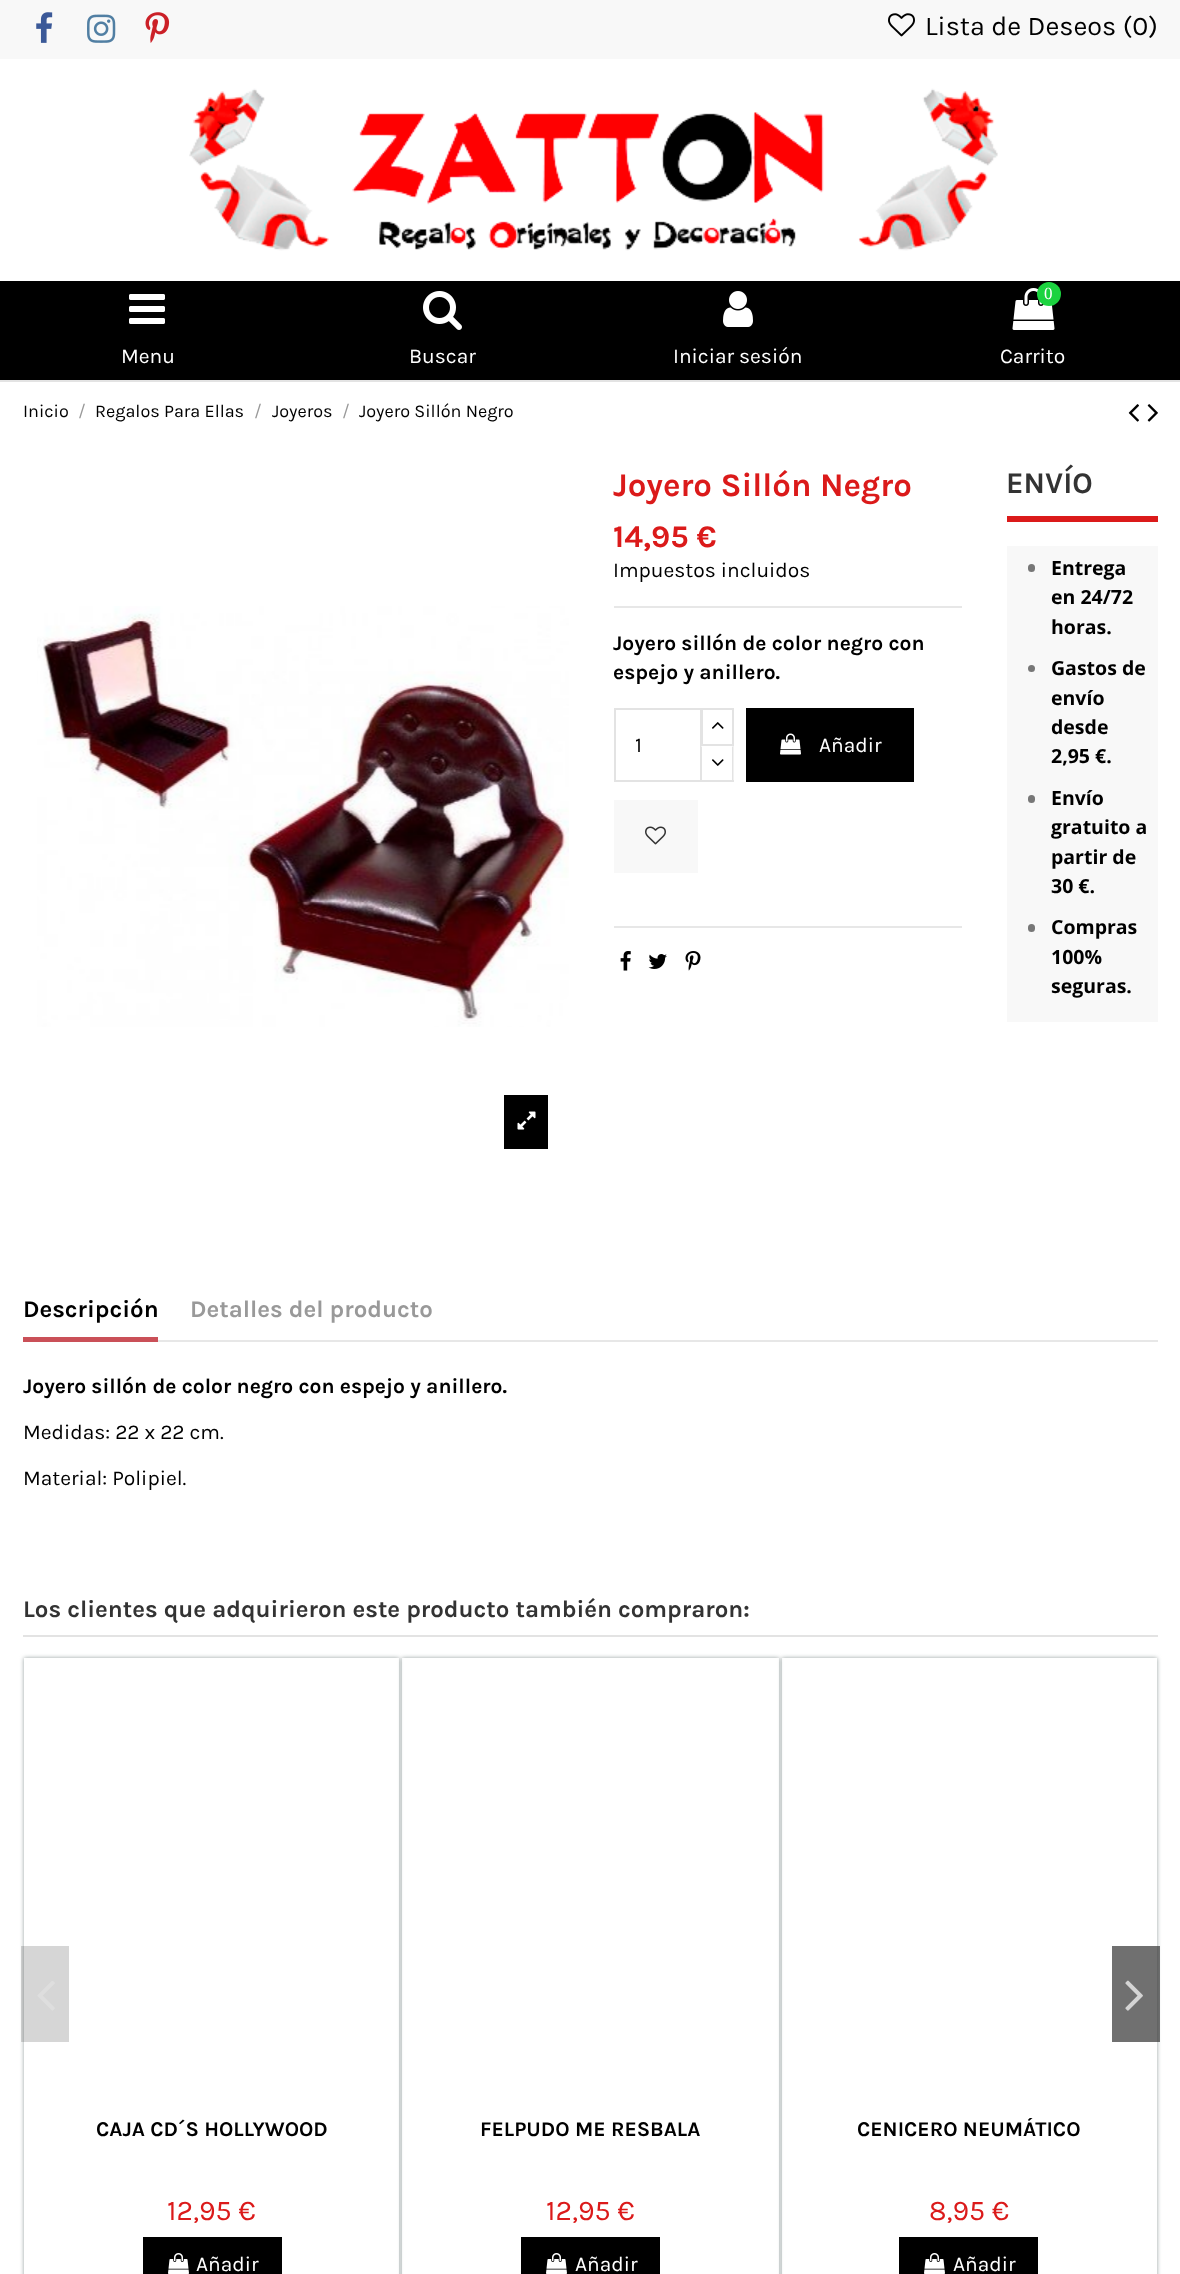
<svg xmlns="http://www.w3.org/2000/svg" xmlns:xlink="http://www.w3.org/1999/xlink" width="1180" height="2274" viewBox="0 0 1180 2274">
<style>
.cls-1{font:27px Karla;fill:#000000}
.cls-2{font:21px Karla;fill:#ffffff}
.cls-3{font:17px Liberation Serif;fill:#ffffff}
.cls-4{font:18px Karla;fill:#000000}
.cls-5{font:18px Karla;fill:#999999}
.cls-6{font:bold 33px Karla;fill:#db1a1a}
.cls-7{font:bold 31.5px Karla;fill:#db1a1a}
.cls-8{font:21px Karla;fill:#000000}
.cls-9{font:bold 21px Karla;fill:#000000}
.cls-10{font:bold 30px Karla;fill:#333333}
.cls-11{font:bold 19.5px Open Sans;fill:#000000}
.cls-12{font:bold 24px Karla;fill:#000000}
.cls-13{font:bold 24px Karla;fill:#999999}
.cls-14{font:bold 24px Karla;fill:#333333}
.cls-15{font:28.5px Karla;fill:#db1a1a}
</style>
<defs>
<clipPath id="clip1"><path d="M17 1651H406V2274H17ZM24 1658H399V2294H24Z" clip-rule="evenodd"/></clipPath>
<clipPath id="clip2"><path d="M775 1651H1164V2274H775ZM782 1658H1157V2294H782Z" clip-rule="evenodd"/></clipPath>
<clipPath id="clip3"><path d="M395 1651H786V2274H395ZM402 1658H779V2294H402Z" clip-rule="evenodd"/></clipPath>
<clipPath id="clip4"><rect x="785" y="2118" width="369" height="72"/></clipPath>
</defs>
<rect width="100%" height="100%" fill="#ffffff"/>
<rect fill="#f8f8f8" x="0" y="0" width="1180" height="59"/>
<image xlink:href="image0.png" x="36" y="12" width="17" height="31"/>
<image xlink:href="image1.png" x="87" y="14" width="29" height="29"/>
<image xlink:href="image2.png" x="145" y="12" width="25" height="31"/>
<image xlink:href="image3.png" x="888" y="13" width="27" height="24"/>
<rect fill="#e3e3e3" x="0" y="380" width="1180" height="2"/>
<image xlink:href="image4.png" x="189" y="88" width="809" height="163"/>
<rect fill="#000000" x="0" y="281" width="1180" height="99"/>
<image xlink:href="image5.png" x="129" y="294" width="36" height="30"/>
<image xlink:href="image6.png" x="423" y="291" width="39" height="39"/>
<image xlink:href="image7.png" x="723" y="291" width="30" height="36"/>
<image xlink:href="image8.png" x="1012" y="288" width="43" height="42"/>
<circle fill="#1bd33f" cx="1049" cy="294" r="12"/>
<image xlink:href="image9.png" x="1128" y="404" width="11" height="18"/>
<image xlink:href="image10.png" x="1147" y="404" width="11" height="18"/>
<image xlink:href="image11.png" x="37" y="606" width="532" height="421"/>
<rect fill="#000000" x="504" y="1095" width="44" height="54"/>
<image xlink:href="image12.png" x="517" y="1111" width="19" height="19"/>
<rect fill="#e7e7e7" x="614" y="606" width="348" height="2"/>
<rect fill="none" stroke="#e3e3e3" stroke-width="2" x="615" y="709" width="86" height="72"/>
<rect fill="none" stroke="#e3e3e3" stroke-width="2" x="702" y="709" width="31" height="36"/>
<image xlink:href="image13.png" x="712" y="722" width="12" height="7"/>
<rect fill="#ffffff" x="701" y="746" width="1" height="34"/>
<path fill="#e3e3e3" d="M733.5 745.5V781.5L732 780V747Z"/>
<rect fill="#e3e3e3" x="701" y="780" width="33" height="2"/>
<path fill="#e3e3e3" d="M700.5 781.5V745.5L702 747V780Z"/>
<image xlink:href="image14.png" x="712" y="759" width="12" height="7"/>
<rect fill="#000000" x="746" y="708" width="168" height="74"/>
<image xlink:href="image15.png" x="780" y="733" width="21" height="22"/>
<rect fill="#f8f8f8" x="614" y="800" width="84" height="73"/>
<image xlink:href="image16.png" x="645" y="826" width="21" height="19"/>
<rect fill="#e7e7e7" x="614" y="926" width="348" height="2"/>
<image xlink:href="image17.png" x="620" y="951" width="11" height="20"/>
<image xlink:href="image18.png" x="648" y="954" width="19" height="15"/>
<image xlink:href="image19.png" x="685" y="951" width="16" height="20"/>
<rect fill="#db1a1a" x="1007" y="516" width="151" height="6"/>
<rect fill="#f8f8f8" x="1007" y="546" width="151" height="476"/>
<rect fill="#777777" x="1028" y="564" width="7" height="8" rx="3.5"/>
<circle fill="#777777" cx="1031.5" cy="668.5" r="3.5"/>
<rect fill="#777777" x="1028" y="795" width="7" height="8" rx="3.5"/>
<rect fill="#777777" x="1028" y="924" width="7" height="8" rx="3.5"/>
<rect fill="#e7e7e7" x="158" y="1340" width="1000" height="2"/>
<rect fill="#ca5058" x="23" y="1337" width="135" height="5"/>
<rect fill="#e3e3e3" x="23" y="1635" width="1135" height="2"/>
<g clip-path="url(#clip1)">
<rect fill="#969f9f" filter="blur(2px)" x="24" y="1658" width="375" height="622"/>
</g>
<rect fill="#333333" fill-opacity="0.2" x="21" y="1946" width="48" height="96"/>
<image xlink:href="image20.png" x="37" y="1981" width="18" height="30"/>
<g clip-path="url(#clip2)">
<rect fill="#969f9f" filter="blur(2px)" x="782" y="1658" width="375" height="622"/>
</g>
<rect fill="#333333" fill-opacity="0.7" x="1112" y="1946" width="48" height="96"/>
<image xlink:href="image21.png" x="1125" y="1980" width="18" height="31"/>
<rect fill="#000000" x="143" y="2237" width="139" height="37"/>
<image xlink:href="image22.png" x="168" y="2253" width="21" height="21"/>
<g clip-path="url(#clip3)">
<rect fill="#969f9f" filter="blur(2px)" x="402" y="1658" width="377" height="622"/>
</g>
<rect fill="#000000" x="521" y="2237" width="139" height="37"/>
<image xlink:href="image22.png" x="546" y="2253" width="21" height="21"/>
<rect fill="#000000" x="899" y="2237" width="139" height="37"/>
<image xlink:href="image22.png" x="924" y="2253" width="21" height="21"/>
<text class="cls-1" x="925" y="35">Lista de Deseos (0)</text>
<text class="cls-2" x="121" y="363">Menu</text>
<text class="cls-2" x="409" y="363">Buscar</text>
<text class="cls-2" x="673" y="363">Iniciar sesión</text>
<text class="cls-3" x="1044" y="299">0</text>
<text class="cls-2" x="1000" y="363">Carrito</text>
<text class="cls-4" x="23" y="417">Inicio</text>
<text class="cls-5" x="78" y="417">/</text>
<text class="cls-4" x="95" y="417">Regalos Para Ellas</text>
<text class="cls-5" x="254" y="417">/</text>
<text class="cls-4" x="272" y="417">Joyeros</text>
<text class="cls-5" x="342" y="417">/</text>
<text class="cls-4" x="359" y="417">Joyero Sillón Negro</text>
<text class="cls-6" x="613" y="496">Joyero Sillón Negro</text>
<text class="cls-7" x="613" y="547">14,95 €</text>
<text class="cls-8" x="613" y="577">Impuestos incluidos</text>
<text class="cls-9"><tspan x="613" y="650">Joyero sillón de color negro con</tspan><tspan x="613" y="679">espejo y anillero.</tspan></text>
<text class="cls-8" x="635" y="752">1</text>
<text class="cls-2" x="819" y="752">Añadir</text>
<text class="cls-10" x="1006" y="493">ENVÍO</text>
<text class="cls-11"><tspan x="1051" y="575">Entrega</tspan><tspan x="1051" y="604">en 24/72</tspan><tspan x="1051" y="634">horas.</tspan></text>
<text class="cls-11"><tspan x="1051" y="675">Gastos de</tspan><tspan x="1051" y="705">envío</tspan><tspan x="1051" y="734">desde</tspan><tspan x="1051" y="763">2,95 €.</tspan></text>
<text class="cls-11"><tspan x="1051" y="805">Envío</tspan><tspan x="1051" y="834">gratuito a</tspan><tspan x="1051" y="864">partir de</tspan><tspan x="1051" y="893">30 €.</tspan></text>
<text class="cls-11"><tspan x="1051" y="934">Compras</tspan><tspan x="1051" y="964">100%</tspan><tspan x="1051" y="993">seguras.</tspan></text>
<text class="cls-12" x="23" y="1317">Descripción</text>
<text class="cls-13" x="190" y="1317">Detalles del producto</text>
<text class="cls-9" x="23" y="1393">Joyero sillón de color negro con espejo y anillero.</text>
<text class="cls-8" x="23" y="1439">Medidas: 22 x 22 cm.</text>
<text class="cls-8" x="23" y="1485">Material: Polipiel.</text>
<text class="cls-14" x="23" y="1617">Los clientes que adquirieron este producto también compraron:</text>
<text class="cls-9" x="96" y="2136">CAJA CD´S HOLLYWOOD</text>
<text class="cls-15" x="167" y="2220">12,95 €</text>
<text class="cls-2" x="196" y="2271">Añadir</text>
<text class="cls-9" x="480" y="2136">FELPUDO ME RESBALA</text>
<text class="cls-15" x="546" y="2220">12,95 €</text>
<text class="cls-2" x="575" y="2271">Añadir</text>
<g clip-path="url(#clip4)">
<text class="cls-9" x="857" y="2136">CENICERO NEUMÁTICO</text>
</g>
<text class="cls-15" x="929" y="2220">8,95 €</text>
<text class="cls-2" x="953" y="2271">Añadir</text>
</svg>
